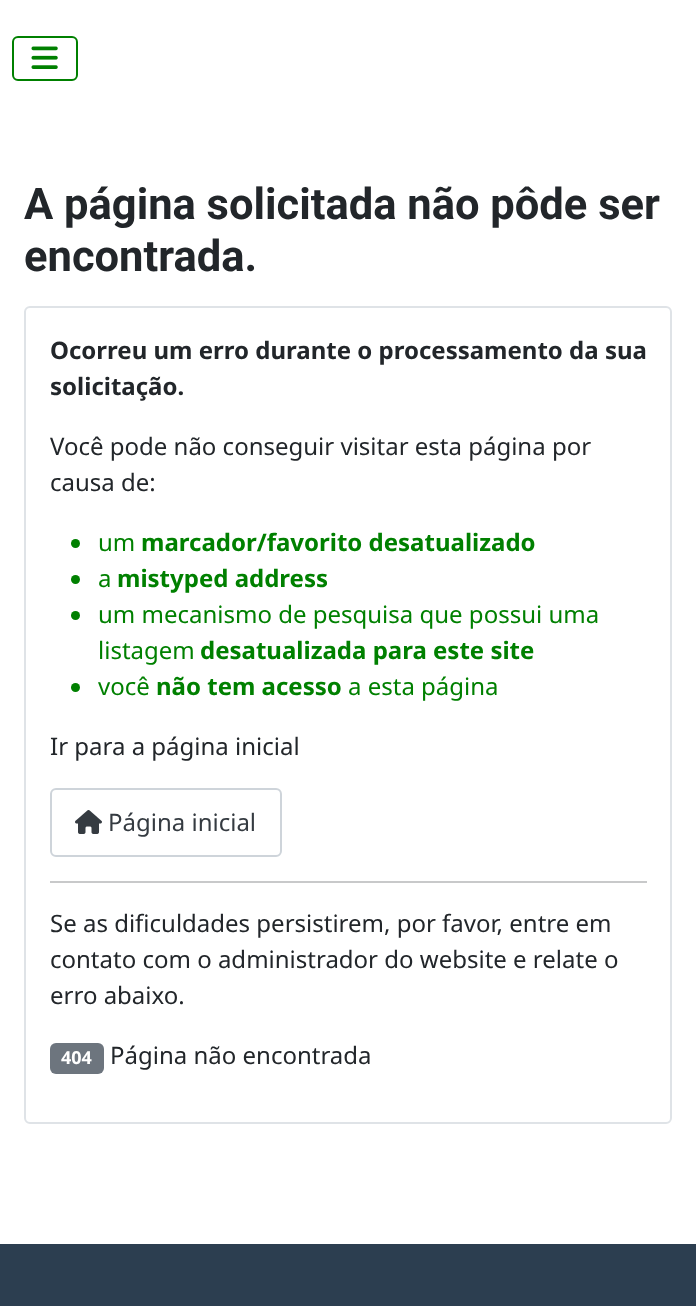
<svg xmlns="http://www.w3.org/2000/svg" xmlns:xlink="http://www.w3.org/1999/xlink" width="696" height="1306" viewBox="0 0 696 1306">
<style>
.cls-1{font:bold 43.5px Roboto;fill:#22262a}
.cls-2{font:bold 24px Noto Sans;fill:#22262a}
.cls-3{font:24px Noto Sans;fill:#22262a}
.cls-4{font:24px Noto Sans;fill:#008000}
.cls-5{font:bold 24px Noto Sans;fill:#008000}
.cls-6{font:24px Noto Sans;fill:#353b41}
.cls-7{font:bold 18px Noto Sans;fill:#ffffff}
</style>
<rect width="100%" height="100%" fill="#ffffff"/>
<rect fill="none" stroke="#008000" stroke-width="2" x="13" y="37" width="64" height="43" rx="5"/>
<image xlink:href="image0.png" x="31" y="46" width="27" height="23"/>
<rect fill="none" stroke="#dfe3e7" stroke-width="2" x="25" y="307" width="646" height="816" rx="5"/>
<circle fill="#008000" cx="75.5" cy="543.5" r="4.5"/>
<circle fill="#008000" cx="75.5" cy="579.5" r="4.5"/>
<circle fill="#008000" cx="75.5" cy="615.5" r="4.5"/>
<circle fill="#008000" cx="75.5" cy="687.5" r="4.5"/>
<rect fill="none" stroke="#ced4da" stroke-width="2" x="51" y="789" width="230" height="67" rx="5"/>
<image xlink:href="image1.png" x="75" y="810" width="27" height="24"/>
<rect fill="#c8c9ca" x="50" y="881" width="597" height="2"/>
<rect fill="#6d757e" x="50" y="1043" width="54" height="31" rx="6"/>
<rect fill="#2c3e50" x="0" y="1244" width="696" height="62"/>
<text class="cls-1"><tspan x="24" y="219">A página solicitada não pôde ser</tspan><tspan x="24" y="271">encontrada.</tspan></text>
<text class="cls-2"><tspan x="50" y="359">Ocorreu um erro durante o processamento da sua</tspan><tspan x="50" y="395">solicitação.</tspan></text>
<text class="cls-3"><tspan x="50" y="455">Você pode não conseguir visitar esta página por</tspan><tspan x="50" y="491">causa de:</tspan></text>
<text class="cls-4" x="98" y="551">um</text>
<text class="cls-5" x="141" y="551">marcador/favorito desatualizado</text>
<text class="cls-4" x="98" y="587">a</text>
<text class="cls-5" x="117" y="587">mistyped address</text>
<text class="cls-4"><tspan x="98" y="623">um mecanismo de pesquisa que possui uma</tspan><tspan x="98" y="659">listagem</tspan></text>
<text class="cls-5" x="200" y="659">desatualizada para este site</text>
<text class="cls-4" x="98" y="695">você</text>
<text class="cls-5" x="156" y="695">não tem acesso</text>
<text class="cls-4" x="348" y="695">a esta página</text>
<text class="cls-3" x="50" y="755">Ir para a página inicial</text>
<text class="cls-6" x="108" y="831">Página inicial</text>
<text class="cls-3"><tspan x="50" y="932">Se as dificuldades persistirem, por favor, entre em</tspan><tspan x="50" y="968">contato com o administrador do website e relate o</tspan><tspan x="50" y="1004">erro abaixo.</tspan></text>
<text class="cls-7" x="61" y="1064">404</text>
<text class="cls-3" x="110" y="1064">Página não encontrada</text>
</svg>
